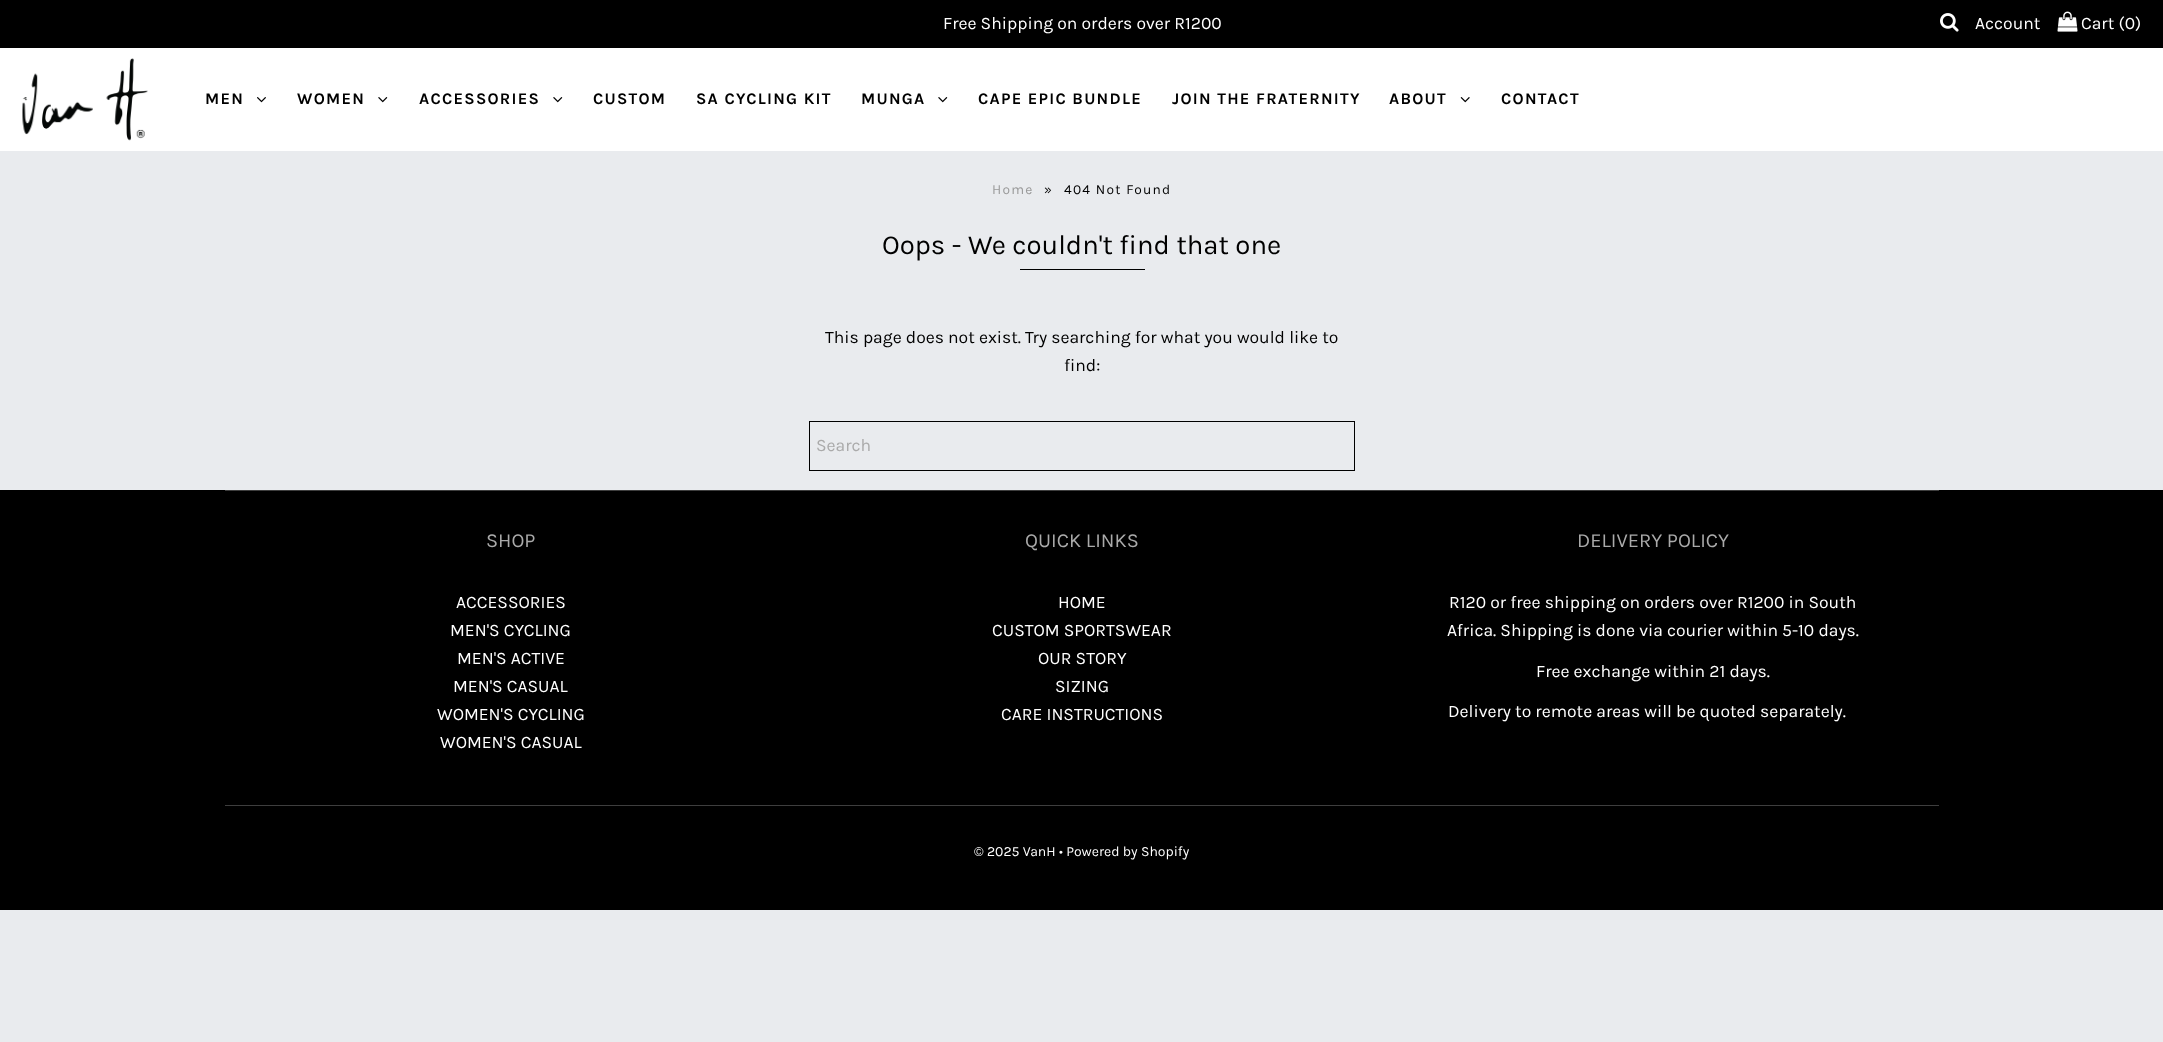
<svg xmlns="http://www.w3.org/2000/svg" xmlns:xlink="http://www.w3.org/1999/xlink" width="2163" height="1042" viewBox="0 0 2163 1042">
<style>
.cls-1{font:17.5px Karla;fill:#ffffff}
.cls-2{font:bold 16.25px Karla;letter-spacing:1.25px;fill:#000000}
.cls-3{font:13.75px Karla;letter-spacing:1.25px;fill:#999999}
.cls-4{font:13.75px Karla;letter-spacing:1.25px;fill:#000000}
.cls-5{font:27.5px Karla;fill:#000000}
.cls-6{font:17.5px Karla;fill:#000000}
.cls-7{font:17.5px Karla;fill:#aaaaaa}
.cls-8{font:20px Karla;fill:#aaaaaa}
.cls-9{font:14px Karla;fill:#ffffff}
</style>
<rect width="100%" height="100%" fill="#e9ebee"/>
<rect fill="#000000" x="0" y="0" width="2163" height="48"/>
<image xlink:href="image0.png" x="1940" y="13" width="19" height="19"/>
<image xlink:href="image1.png" x="2057" y="11" width="21" height="21"/>
<rect fill="#ffffff" x="0" y="48" width="2163" height="103"/>
<image xlink:href="image2.png" x="22" y="58" width="126" height="83"/>
<image xlink:href="image3.png" x="257" y="97" width="9" height="6"/>
<image xlink:href="image4.png" x="378" y="97" width="10" height="6"/>
<image xlink:href="image4.png" x="553" y="97" width="10" height="6"/>
<image xlink:href="image4.png" x="938" y="97" width="10" height="6"/>
<image xlink:href="image5.png" x="1460" y="97" width="10" height="6"/>
<rect fill="#000000" x="1020" y="269" width="125" height="1"/>
<rect fill="none" stroke="#000000" x="809.5" y="421.5" width="545" height="49"/>
<rect fill="#000000" x="0" y="490" width="2163" height="420"/>
<rect fill="#3e3e3e" x="225" y="490" width="1714" height="1"/>
<rect fill="#3e3e3e" x="225" y="805" width="1714" height="1"/>
<text class="cls-1" x="943" y="29">Free Shipping on orders over R1200</text>
<text class="cls-1" x="1975" y="29">Account</text>
<text class="cls-1" x="2081" y="29">Cart (0)</text>
<text class="cls-2" x="205" y="104">MEN</text>
<text class="cls-2" x="297" y="104">WOMEN</text>
<text class="cls-2" x="419" y="104">ACCESSORIES</text>
<text class="cls-2" x="593" y="104">CUSTOM</text>
<text class="cls-2" x="696" y="104">SA CYCLING KIT</text>
<text class="cls-2" x="861" y="104">MUNGA</text>
<text class="cls-2" x="978" y="104">CAPE EPIC BUNDLE</text>
<text class="cls-2" x="1172" y="104">JOIN THE FRATERNITY</text>
<text class="cls-2" x="1389" y="104">ABOUT</text>
<text class="cls-2" x="1501" y="104">CONTACT</text>
<text class="cls-3" x="992" y="194">Home</text>
<text class="cls-4" x="1044" y="194">»</text>
<text class="cls-4" x="1064" y="194">404 Not Found</text>
<text class="cls-5" x="882" y="254">Oops - We couldn't find that one</text>
<text class="cls-6" x="825" y="343">This page does not exist. Try searching for what you would like to</text>
<text class="cls-6" x="1064" y="371">find:</text>
<text class="cls-7" x="816" y="451">Search</text>
<text class="cls-8" x="486" y="547">SHOP</text>
<text class="cls-1" x="456" y="608">ACCESSORIES</text>
<text class="cls-1" x="450" y="636">MEN'S CYCLING</text>
<text class="cls-1" x="457" y="664">MEN'S ACTIVE</text>
<text class="cls-1" x="453" y="692">MEN'S CASUAL</text>
<text class="cls-1" x="437" y="720">WOMEN'S CYCLING</text>
<text class="cls-1" x="440" y="748">WOMEN'S CASUAL</text>
<text class="cls-8" x="1025" y="547">QUICK LINKS</text>
<text class="cls-1" x="1058" y="608">HOME</text>
<text class="cls-1" x="992" y="636">CUSTOM SPORTSWEAR</text>
<text class="cls-1" x="1038" y="664">OUR STORY</text>
<text class="cls-1" x="1055" y="692">SIZING</text>
<text class="cls-1" x="1001" y="720">CARE INSTRUCTIONS</text>
<text class="cls-8" x="1577" y="547">DELIVERY POLICY</text>
<text class="cls-1" x="1449" y="608">R120 or free shipping on orders over R1200 in South</text>
<text class="cls-1" x="1447" y="636">Africa. Shipping is done via courier within 5-10 days.</text>
<text class="cls-1" x="1536" y="677">Free exchange within 21 days.</text>
<text class="cls-1" x="1448" y="717">Delivery to remote areas will be quoted separately.</text>
<text class="cls-9" x="974" y="856">© 2025 VanH • Powered by Shopify</text>
</svg>
